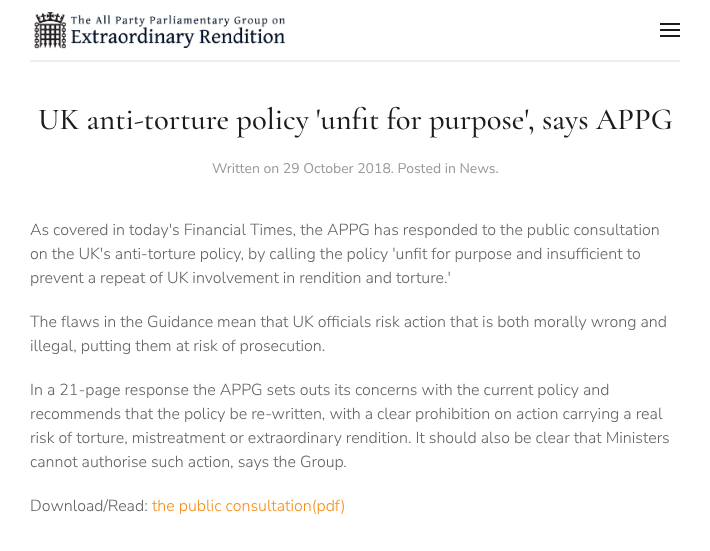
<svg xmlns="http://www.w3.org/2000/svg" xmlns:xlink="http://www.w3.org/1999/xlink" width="710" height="551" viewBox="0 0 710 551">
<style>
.cls-1{font:500 30.6px Cormorant Garamond;fill:#1a1b1d}
.cls-2{font:200 14px Nunito Sans;fill:#999999}
.cls-3{font:200 16px 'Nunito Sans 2';fill:#616367}
.cls-4{font:200 16px 'Nunito Sans 2';fill:#f58e18}
</style>
<rect width="100%" height="100%" fill="#ffffff"/>
<rect fill="#eeeeee" x="30" y="60" width="650" height="2"/>
<image xlink:href="image0.png" x="34" y="12" width="251" height="37"/>
<rect fill="#1a1b1d" x="660" y="23" width="20" height="2"/>
<rect fill="#1a1b1d" x="660" y="29" width="20" height="2"/>
<rect fill="#1a1b1d" x="660" y="35" width="20" height="2"/>
<text class="cls-1" x="38" y="129">UK anti-torture policy 'unfit for purpose', says APPG</text>
<text class="cls-2" x="212" y="173">Written on 29 October 2018. Posted in News.</text>
<text class="cls-3"><tspan x="30" y="235">As covered in today's Financial Times, the APPG has responded to the public consultation</tspan><tspan x="30" y="259">on the UK's anti-torture policy, by calling the policy 'unfit for purpose and insufficient to</tspan><tspan x="30" y="283">prevent a repeat of UK involvement in rendition and torture.'</tspan></text>
<text class="cls-3"><tspan x="30" y="327">The flaws in the Guidance mean that UK officials risk action that is both morally wrong and</tspan><tspan x="30" y="351">illegal, putting them at risk of prosecution.</tspan></text>
<text class="cls-3"><tspan x="30" y="395">In a 21-page response the APPG sets outs its concerns with the current policy and</tspan><tspan x="30" y="419">recommends that the policy be re-written, with a clear prohibition on action carrying a real</tspan><tspan x="30" y="443">risk of torture, mistreatment or extraordinary rendition. It should also be clear that Ministers</tspan><tspan x="30" y="467">cannot authorise such action, says the Group.</tspan></text>
<text class="cls-3" x="30" y="511">Download/Read:</text>
<text class="cls-4" x="152" y="511">the public consultation(pdf)</text>
</svg>
